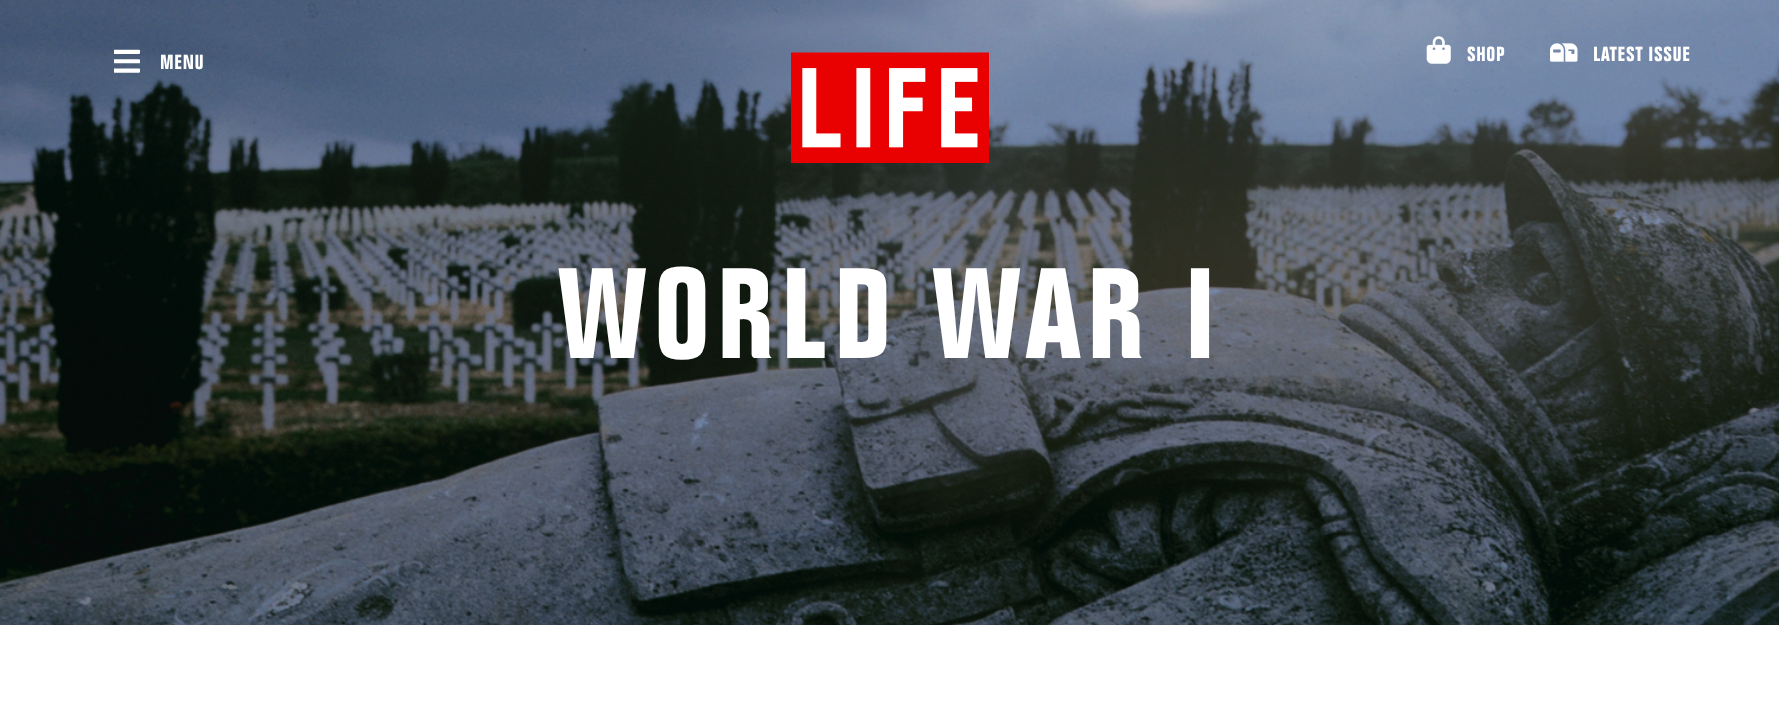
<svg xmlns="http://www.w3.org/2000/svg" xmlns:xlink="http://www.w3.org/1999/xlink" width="1779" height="715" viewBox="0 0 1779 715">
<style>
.cls-1{font:bold 20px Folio;letter-spacing:0.6px;fill:#ffffff}
.cls-2{font:bold 126px Folio;letter-spacing:6.25px;fill:#ffffff}
</style>
<rect width="100%" height="100%" fill="#ffffff"/>
<image xlink:href="image4.png" x="0" y="0" width="1779" height="625"/>
<image xlink:href="image0.png" x="114" y="49" width="26" height="24"/>
<rect fill="#e90000" x="791" y="53" width="198" height="110"/>
<image xlink:href="image1.png" x="791" y="52" width="198" height="96"/>
<image xlink:href="image2.png" x="1426" y="36" width="25" height="28"/>
<image xlink:href="image3.png" x="1550" y="43" width="28" height="19"/>
<text class="cls-1" x="160" y="69">MENU</text>
<text class="cls-1" x="1467" y="61">SHOP</text>
<text class="cls-1" x="1593" y="61">LATEST ISSUE</text>
<text class="cls-2" x="557" y="358">WORLD WAR I</text>
</svg>
